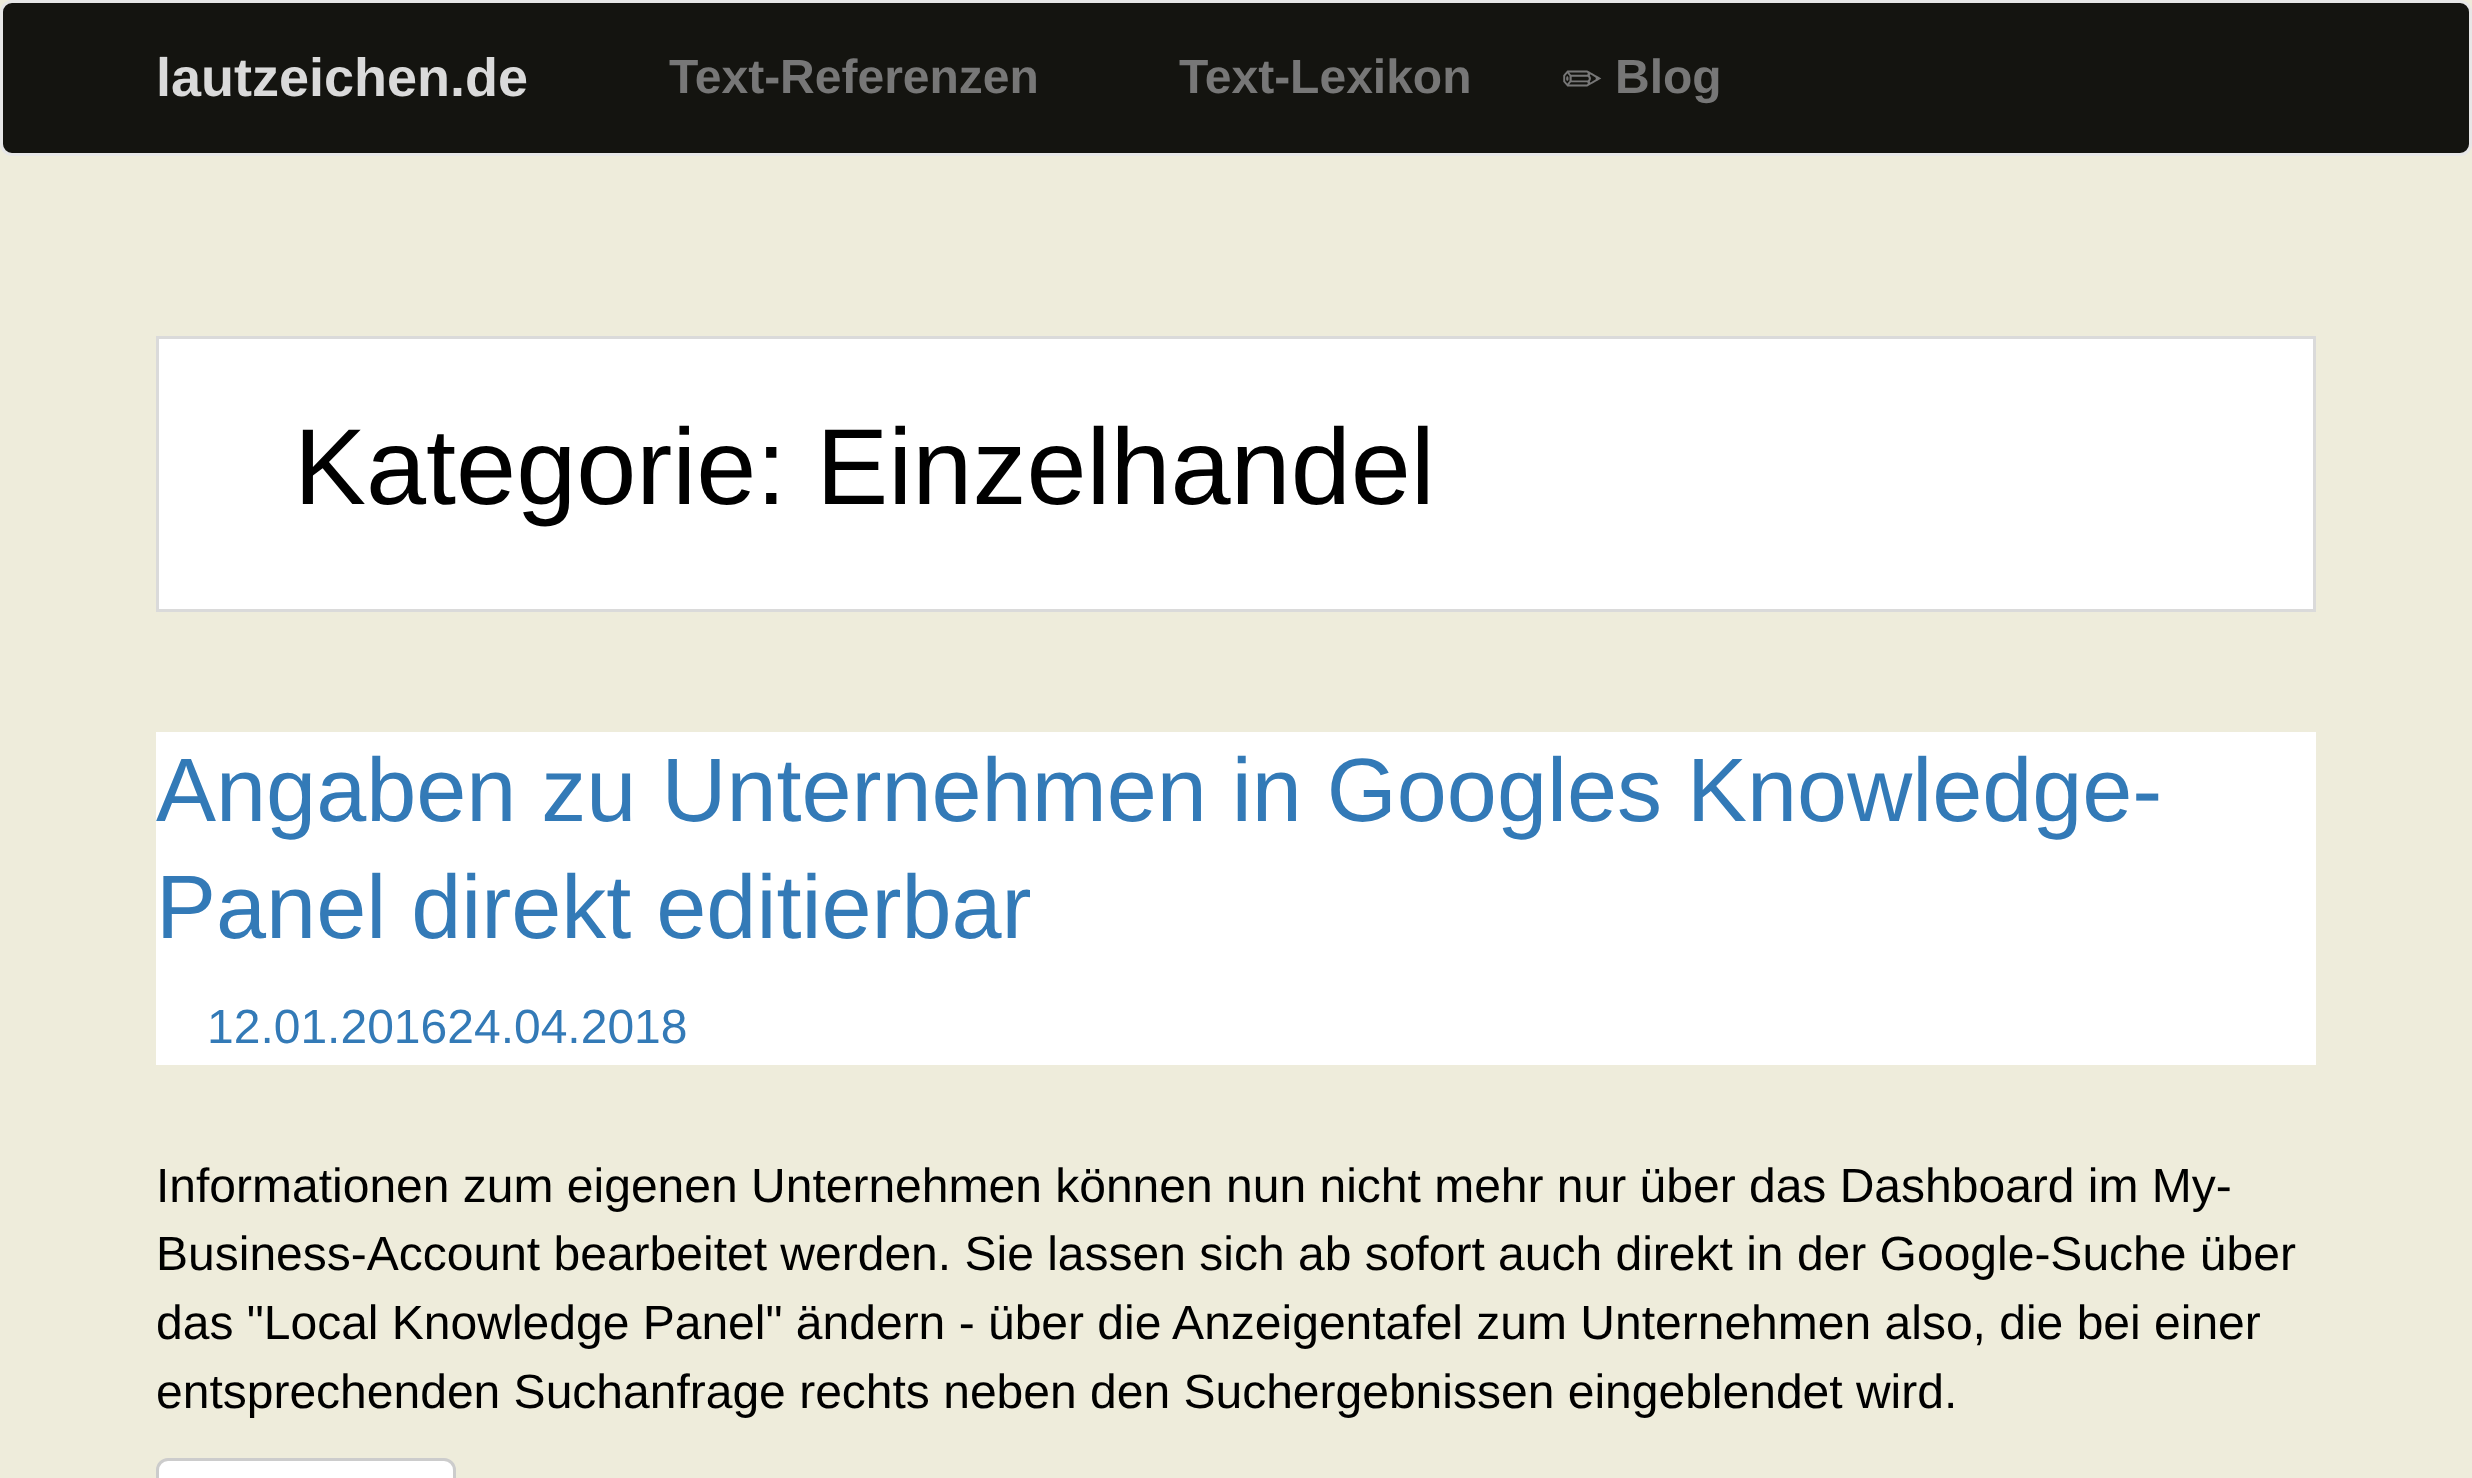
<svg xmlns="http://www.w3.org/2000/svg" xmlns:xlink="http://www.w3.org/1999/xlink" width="2472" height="1478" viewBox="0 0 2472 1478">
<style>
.cls-1{font:bold 54px Liberation Sans;fill:#dadada}
.cls-2{font:bold 48px Liberation Sans;fill:#777777}
.cls-3{font:48px DejaVu Sans;fill:#777777}
.cls-4{font:108px Liberation Sans;fill:#000000}
.cls-5{font:90px Liberation Sans;fill:#337ab7}
.cls-6{font:48px Liberation Sans;fill:#337ab7}
.cls-7{font:48px Liberation Sans;fill:#000000}
</style>
<rect width="100%" height="100%" fill="#eeecdb"/>
<rect fill="#141410" stroke="#e7e7e7" stroke-width="3" x="1.5" y="1.5" width="2469" height="153" rx="10.5"/>
<rect fill="#ffffff" stroke="#dadada" stroke-width="3" x="157.5" y="337.5" width="2157" height="273"/>
<rect fill="#ffffff" x="156" y="732" width="2160" height="333"/>
<rect fill="#ffffff" stroke="#cccccc" stroke-width="3" x="157.5" y="1459.5" width="297" height="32" rx="10.5"/>
<text class="cls-1" x="156" y="96">lautzeichen.de</text>
<text class="cls-2" x="669" y="93">Text-Referenzen</text>
<text class="cls-2" x="1179" y="93">Text-Lexikon</text>
<text class="cls-3" x="1562" y="96">✏</text>
<text class="cls-2" x="1615" y="93">Blog</text>
<text class="cls-4" x="294" y="504">Kategorie: Einzelhandel</text>
<text class="cls-5"><tspan x="156" y="821">Angaben zu Unternehmen in Googles Knowledge-</tspan><tspan x="156" y="938">Panel direkt editierbar</tspan></text>
<text class="cls-6" x="207" y="1043">12.01.201624.04.2018</text>
<text class="cls-7"><tspan x="156" y="1202">Informationen zum eigenen Unternehmen können nun nicht mehr nur über das Dashboard im My-</tspan><tspan x="156" y="1270">Business-Account bearbeitet werden. Sie lassen sich ab sofort auch direkt in der Google-Suche über</tspan><tspan x="156" y="1339">das "Local Knowledge Panel" ändern - über die Anzeigentafel zum Unternehmen also, die bei einer</tspan><tspan x="156" y="1408">entsprechenden Suchanfrage rechts neben den Suchergebnissen eingeblendet wird.</tspan></text>
</svg>
